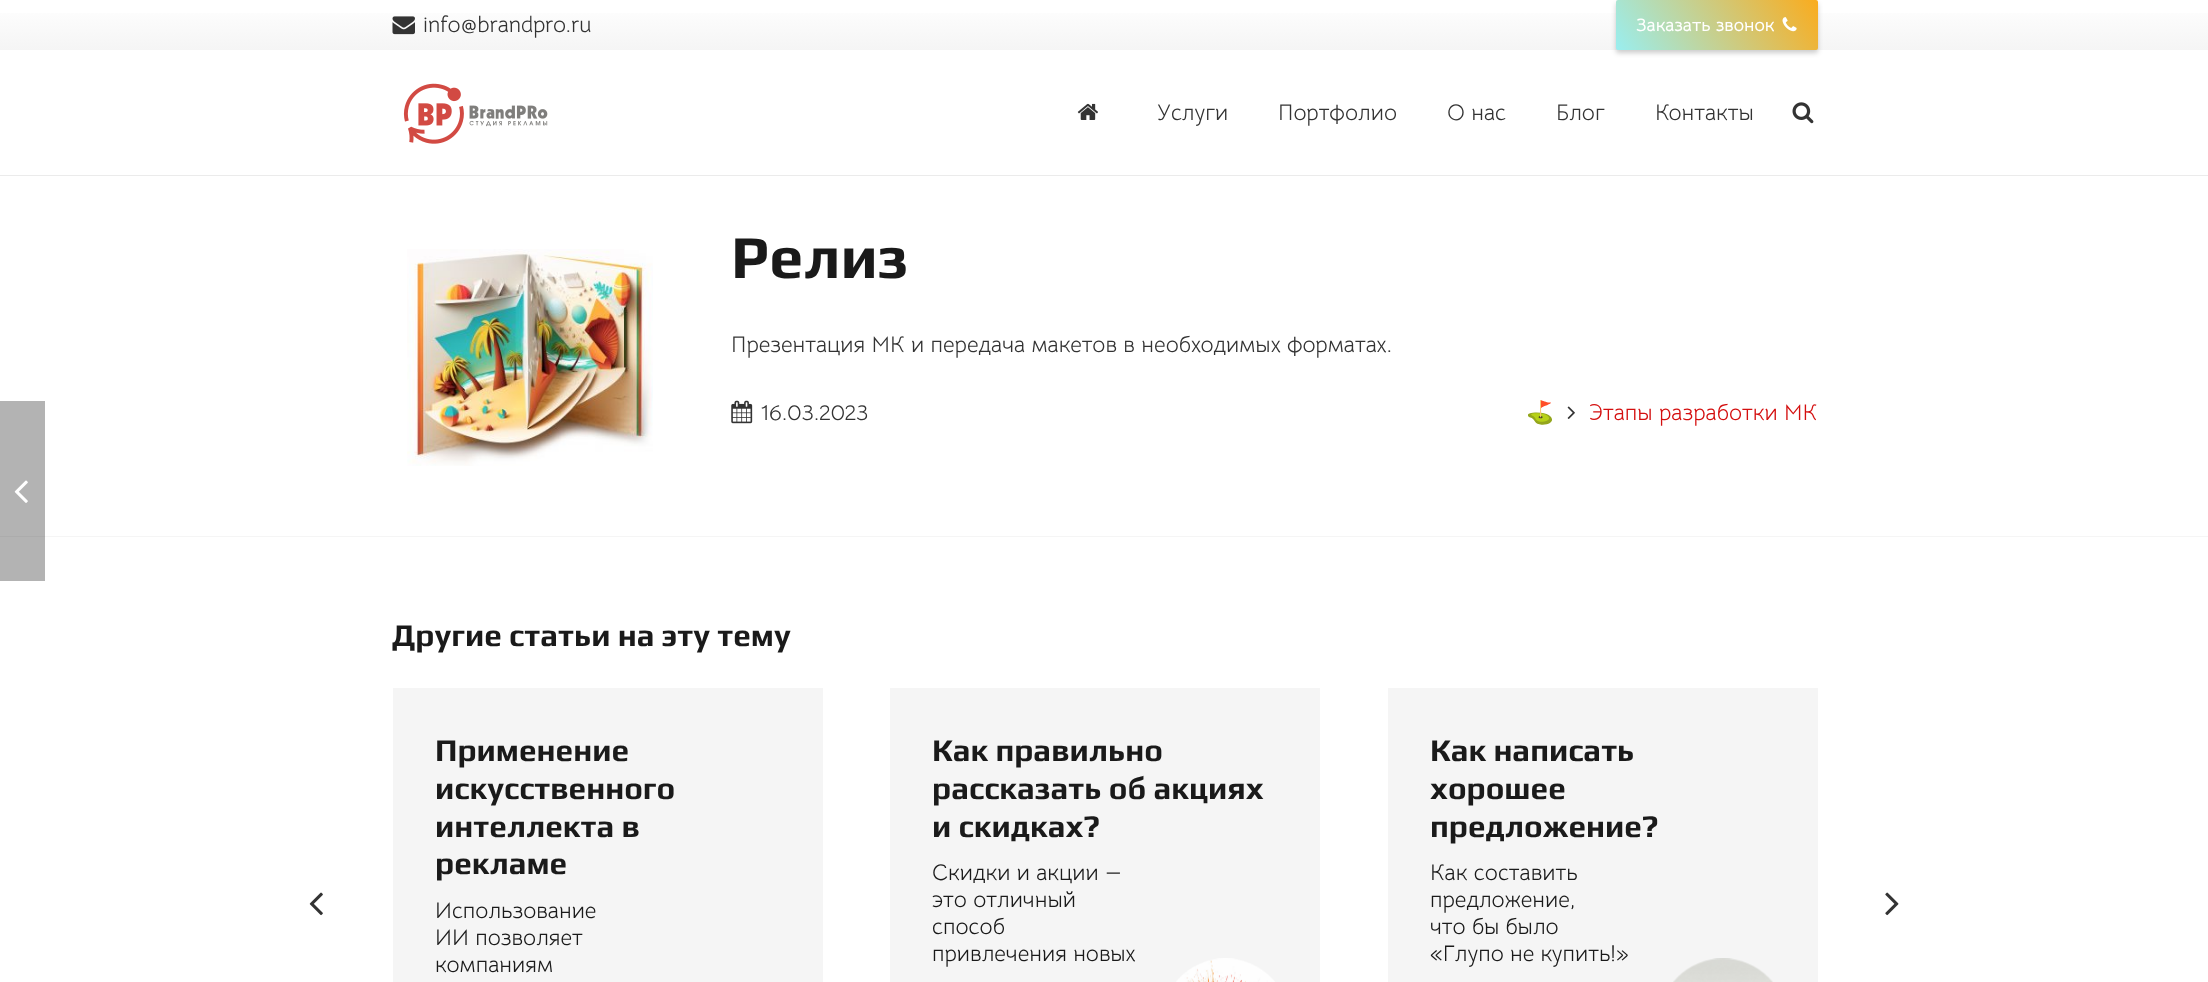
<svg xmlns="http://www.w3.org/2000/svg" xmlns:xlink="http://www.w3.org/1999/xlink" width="2208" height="982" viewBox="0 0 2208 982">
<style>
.cls-1{font:22.5px Bellota Text;fill:#333333}
.cls-2{font:bold 18px Bellota Text;fill:#ffffff}
.cls-3{font:bold 61px Play;fill:#1a1a1a}
.cls-4{font:22.5px Noto Color Emoji;fill:#d40f0f}
.cls-5{font:22.5px Bellota Text;fill:#d40f0f}
.cls-6{font:bold 31.5px Play;fill:#1a1a1a}
.cls-7{font:22.5px Bellota Text;fill:#1a1a1a}
</style>
<defs>
<linearGradient id="g1" gradientUnits="userSpaceOnUse" x1="1104" y1="50" x2="1104" y2="0"><stop offset="0" stop-color="#f5f5f5"/><stop offset="1" stop-color="#ffffff"/></linearGradient>
<linearGradient id="g2" gradientUnits="userSpaceOnUse" x1="1636" y1="79" x2="1798" y2="-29"><stop offset="0" stop-color="#9aeeef"/><stop offset="1" stop-color="#faac1e"/></linearGradient>
</defs>
<rect width="100%" height="100%" fill="#ffffff"/>
<rect fill="#b3b3b3" x="0" y="401" width="45" height="180"/>
<rect fill="url(#g1)" x="0" y="13" width="2208" height="37"/>
<image xlink:href="image0.png" x="392" y="16" width="23" height="19"/>
<rect fill="#000000" fill-opacity="0.2" filter="blur(2.5px)" x="1616" y="3" width="202" height="50" rx="2"/>
<rect fill="url(#g2)" x="1616" y="0" width="202" height="50" rx="2"/>
<image xlink:href="image1.png" x="1782" y="17" width="15" height="15"/>
<path fill="#ebebeb" d="M0 175V176H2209V51V175Z"/>
<image xlink:href="image2.png" x="403" y="83" width="145" height="61"/>
<image xlink:href="image3.png" x="1077" y="103" width="21" height="17"/>
<image xlink:href="image4.png" x="1792" y="102" width="22" height="22"/>
<rect fill="#f5f5f5" x="45" y="536" width="2163" height="1"/>
<rect fill="#acacac" x="0" y="536" width="45" height="1"/>
<image xlink:href="image5.png" x="407" y="249" width="246" height="217"/>
<image xlink:href="image6.png" x="731" y="400" width="22" height="24"/>
<image xlink:href="image7.png" x="1567" y="406" width="8" height="13"/>
<image xlink:href="image8.png" x="14" y="480" width="14" height="23"/>
<rect fill="#f5f5f5" x="393" y="688" width="430" height="294"/>
<rect fill="#f5f5f5" x="890" y="688" width="430" height="294"/>
<image xlink:href="image9.png" x="1176" y="958" width="99" height="24"/>
<rect fill="#f5f5f5" x="1388" y="688" width="430" height="294"/>
<image xlink:href="image10.png" x="1673" y="958" width="100" height="24"/>
<image xlink:href="image11.png" x="309" y="892" width="14" height="24"/>
<image xlink:href="image12.png" x="1885" y="892" width="14" height="24"/>
<text class="cls-1" x="423" y="32">info@brandpro.ru</text>
<text class="cls-2" x="1636" y="31">Заказать звонок</text>
<text class="cls-1" x="1157" y="120">Услуги</text>
<text class="cls-1" x="1278" y="120">Портфолио</text>
<text class="cls-1" x="1447" y="120">О нас</text>
<text class="cls-1" x="1556" y="120">Блог</text>
<text class="cls-1" x="1655" y="120">Контакты</text>
<text class="cls-3" x="731" y="278">Релиз</text>
<text class="cls-1" x="731" y="352">Презентация МК и передача макетов в необходимых форматах.</text>
<text class="cls-1" x="761" y="420">16.03.2023</text>
<text class="cls-4" x="1526" y="420">⛳</text>
<text class="cls-5" x="1589" y="420">Этапы разработки МК</text>
<text class="cls-6" x="392" y="646">Другие статьи на эту тему</text>
<text class="cls-6"><tspan x="435" y="761">Применение</tspan><tspan x="435" y="799">искусственного</tspan><tspan x="435" y="837">интеллекта в</tspan><tspan x="435" y="874">рекламе</tspan></text>
<text class="cls-7"><tspan x="435" y="918">Использование</tspan><tspan x="435" y="945">ИИ позволяет</tspan><tspan x="435" y="972">компаниям</tspan></text>
<text class="cls-6"><tspan x="932" y="761">Как правильно</tspan><tspan x="932" y="799">рассказать об акциях</tspan><tspan x="932" y="837">и скидках?</tspan></text>
<text class="cls-7"><tspan x="932" y="880">Скидки и акции —</tspan><tspan x="932" y="907">это отличный</tspan><tspan x="932" y="934">способ</tspan><tspan x="932" y="961">привлечения новых</tspan></text>
<text class="cls-6"><tspan x="1430" y="761">Как написать</tspan><tspan x="1430" y="799">хорошее</tspan><tspan x="1430" y="837">предложение?</tspan></text>
<text class="cls-7"><tspan x="1430" y="880">Как составить</tspan><tspan x="1430" y="907">предложение,</tspan><tspan x="1430" y="934">что бы было</tspan><tspan x="1430" y="961">«Глупо не купить!»</tspan></text>
</svg>
